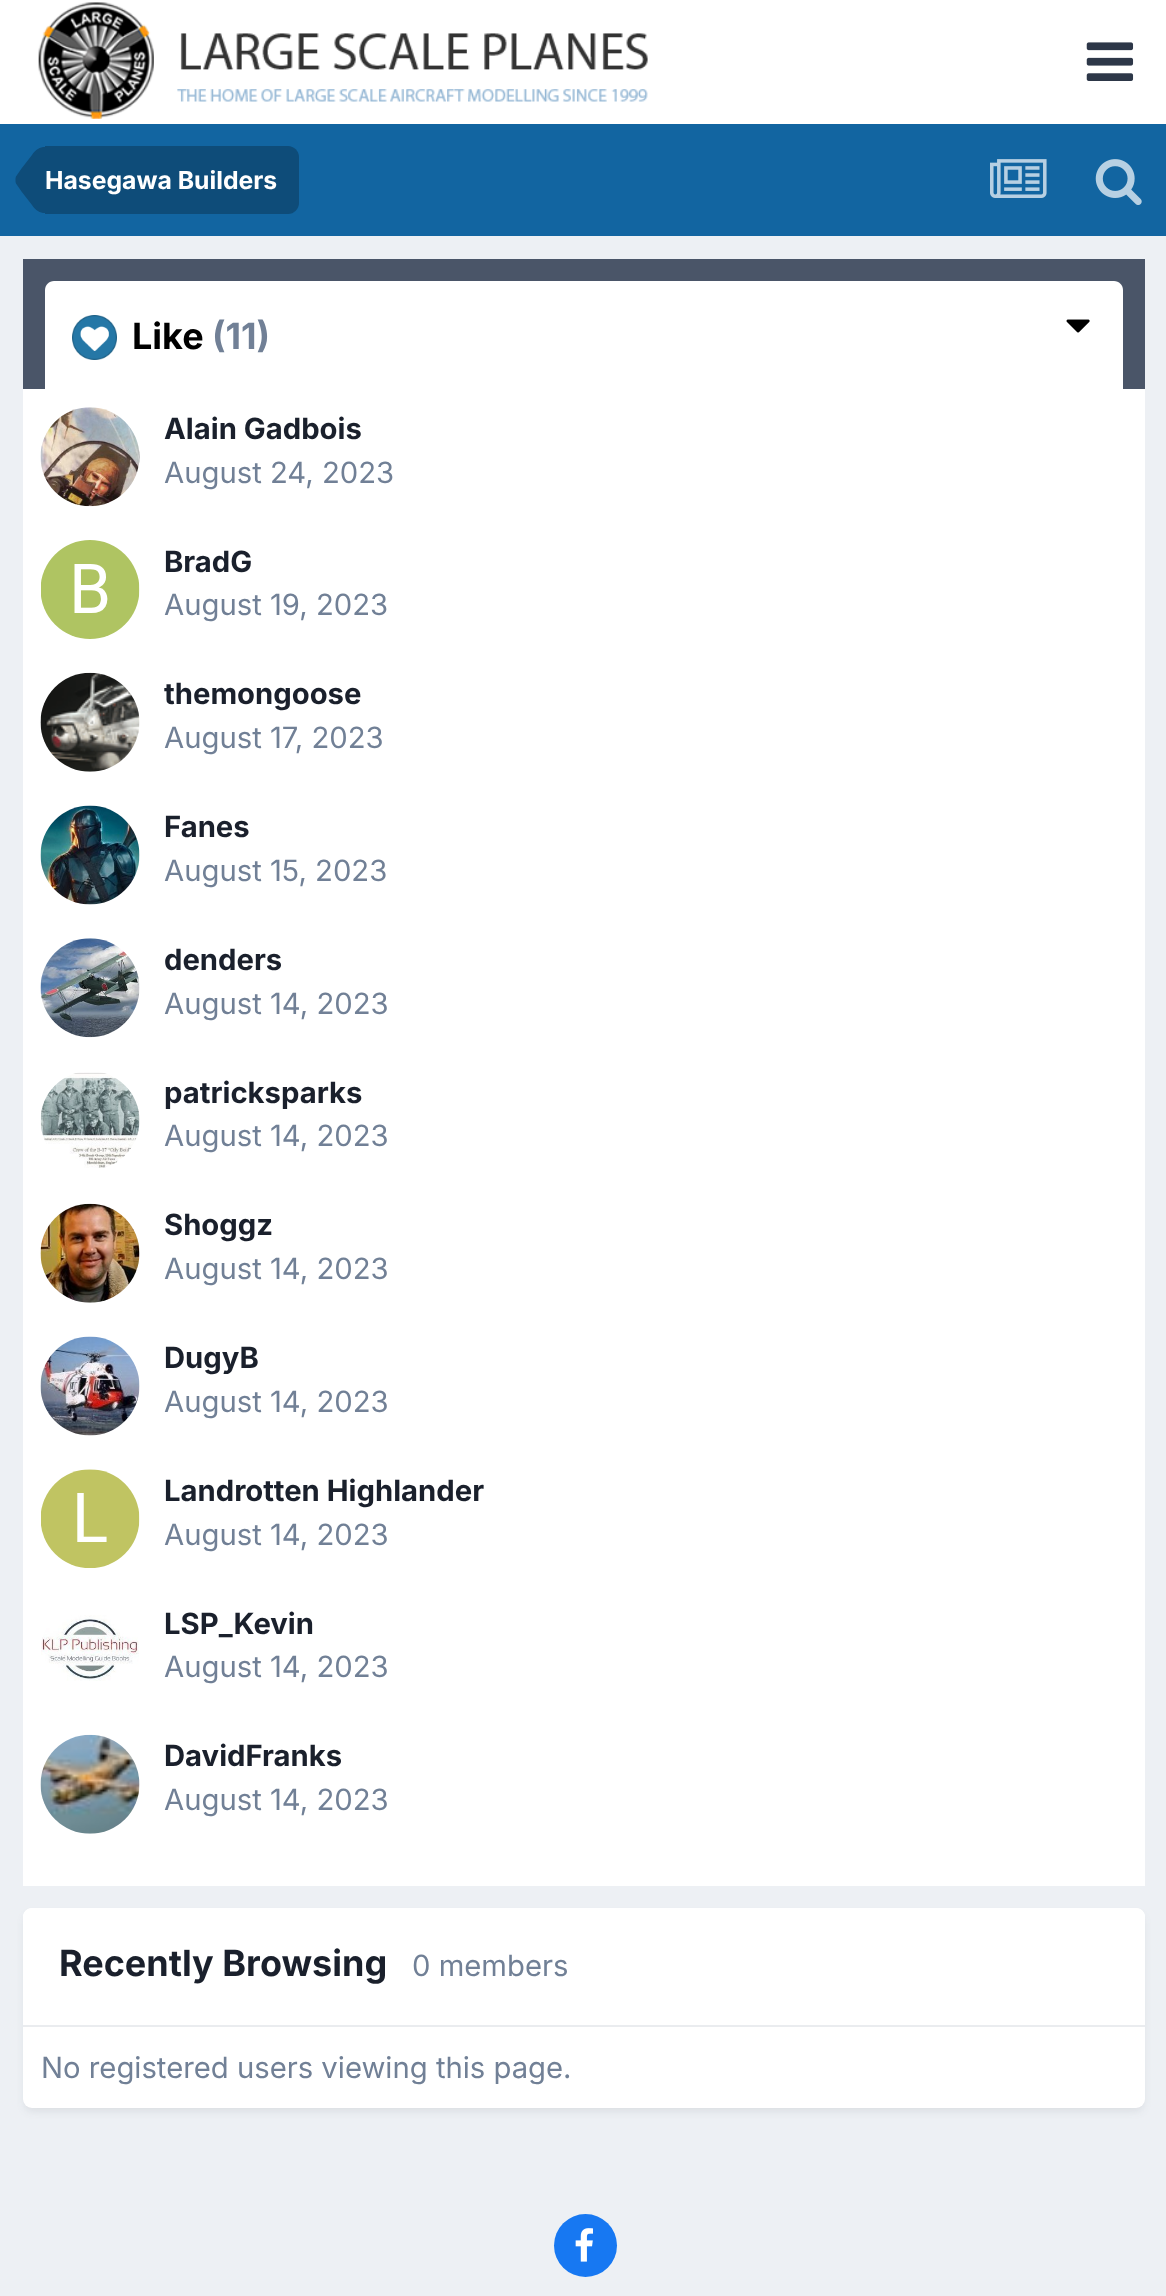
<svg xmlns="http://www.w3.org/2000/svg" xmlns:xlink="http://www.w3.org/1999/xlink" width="1166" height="2296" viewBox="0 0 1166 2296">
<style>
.cls-1{font:bold 24.75px Inter;fill:#ffffff}
.cls-2{font:bold 36px Inter;fill:#000000}
.cls-3{font:bold 36px Inter;fill:#718096}
.cls-4{font:bold 29.25px Inter;fill:#1a202c}
.cls-5{font:29.25px Inter;fill:#718096}
.cls-6{font:bold 36px Inter;fill:#1a202c}
</style>
<rect width="100%" height="100%" fill="#edf0f4"/>
<rect fill="#ffffff" x="0" y="0" width="1166" height="124"/>
<image xlink:href="image0.png" x="38" y="2" width="610" height="117"/>
<image xlink:href="image1.png" x="1086" y="42" width="48" height="39"/>
<rect fill="#1265a1" x="0" y="124" width="1166" height="112"/>
<path fill="#0e4c79" d="M45 146H288C294 146 299 151 299 157V203C299 209 294 214 288 214H45Z"/>
<path fill="#0e4c79" d="M45 180V213C40 213 35.5 210.5 32 205L21.5 191.5L16 183.5C15.5 182 15.5 181 15.5 180Z"/>
<path fill="#0e4c79" d="M45 180H15.5C15.5 179 15.5 178 16 176.5L21.5 168.5L32 155C35.5 149.5 40 147 45 147Z"/>
<image xlink:href="image2.png" x="990" y="159" width="57" height="39"/>
<image xlink:href="image3.png" x="1095" y="159" width="47" height="46"/>
<rect fill="#4a5568" x="23" y="259" width="1122" height="130"/>
<path fill="#ffffff" d="M54 281H1114C1119 281 1123 285 1123 290V389H45V290C45 285 49 281 54 281Z"/>
<image xlink:href="image4.png" x="72" y="315" width="45" height="45"/>
<image xlink:href="image5.png" x="1066" y="319" width="24" height="14"/>
<rect fill="#ffffff" x="23" y="389" width="1122" height="1497"/>
<image xlink:href="image6.png" x="40" y="407" width="100" height="100"/>
<image xlink:href="image7.png" x="41" y="540" width="99" height="99"/>
<image xlink:href="image8.png" x="40" y="672" width="100" height="100"/>
<image xlink:href="image9.png" x="40" y="805" width="100" height="100"/>
<image xlink:href="image10.png" x="40" y="938" width="100" height="100"/>
<image xlink:href="image11.png" x="40" y="1072" width="100" height="96"/>
<image xlink:href="image12.png" x="40" y="1203" width="100" height="100"/>
<image xlink:href="image13.png" x="40" y="1336" width="100" height="100"/>
<image xlink:href="image14.png" x="41" y="1469" width="99" height="99"/>
<image xlink:href="image15.png" x="41" y="1615" width="98" height="66"/>
<image xlink:href="image16.png" x="40" y="1734" width="100" height="100"/>
<rect fill="#2d3748" fill-opacity="0.1" filter="blur(4.5px)" x="25" y="1915" width="1118" height="196" rx="7"/>
<rect fill="#ffffff" x="23" y="1908" width="1122" height="200" rx="9"/>
<path fill="#ffffff" d="M32 1908H1136C1141 1908 1145 1912 1145 1917V2027H23V1917C23 1912 27 1908 32 1908Z"/>
<rect fill="#eaecef" x="23" y="2025" width="1122" height="2"/>
<circle fill="#1778f2" cx="585.5" cy="2245.5" r="31.5"/>
<image xlink:href="image17.png" x="575" y="2228" width="18" height="34"/>
<text class="cls-1" x="45" y="189">Hasegawa Builders</text>
<text class="cls-2" x="132" y="349">Like</text>
<text class="cls-3" x="212" y="349">(11)</text>
<text class="cls-4" x="164" y="439">Alain Gadbois</text>
<text class="cls-5" x="164" y="483">August 24, 2023</text>
<text class="cls-4" x="164" y="572">BradG</text>
<text class="cls-5" x="164" y="615">August 19, 2023</text>
<text class="cls-4" x="164" y="704">themongoose</text>
<text class="cls-5" x="164" y="748">August 17, 2023</text>
<text class="cls-4" x="164" y="837">Fanes</text>
<text class="cls-5" x="164" y="881">August 15, 2023</text>
<text class="cls-4" x="164" y="970">denders</text>
<text class="cls-5" x="164" y="1014">August 14, 2023</text>
<text class="cls-4" x="164" y="1103">patricksparks</text>
<text class="cls-5" x="164" y="1146">August 14, 2023</text>
<text class="cls-4" x="164" y="1235">Shoggz</text>
<text class="cls-5" x="164" y="1279">August 14, 2023</text>
<text class="cls-4" x="164" y="1368">DugyB</text>
<text class="cls-5" x="164" y="1412">August 14, 2023</text>
<text class="cls-4" x="164" y="1501">Landrotten Highlander</text>
<text class="cls-5" x="164" y="1545">August 14, 2023</text>
<text class="cls-4" x="164" y="1634">LSP_Kevin</text>
<text class="cls-5" x="164" y="1677">August 14, 2023</text>
<text class="cls-4" x="164" y="1766">DavidFranks</text>
<text class="cls-5" x="164" y="1810">August 14, 2023</text>
<text class="cls-6" x="59" y="1976">Recently Browsing</text>
<text class="cls-5" x="412" y="1976">0 members</text>
<text class="cls-5" x="41" y="2078">No registered users viewing this page.</text>
</svg>
